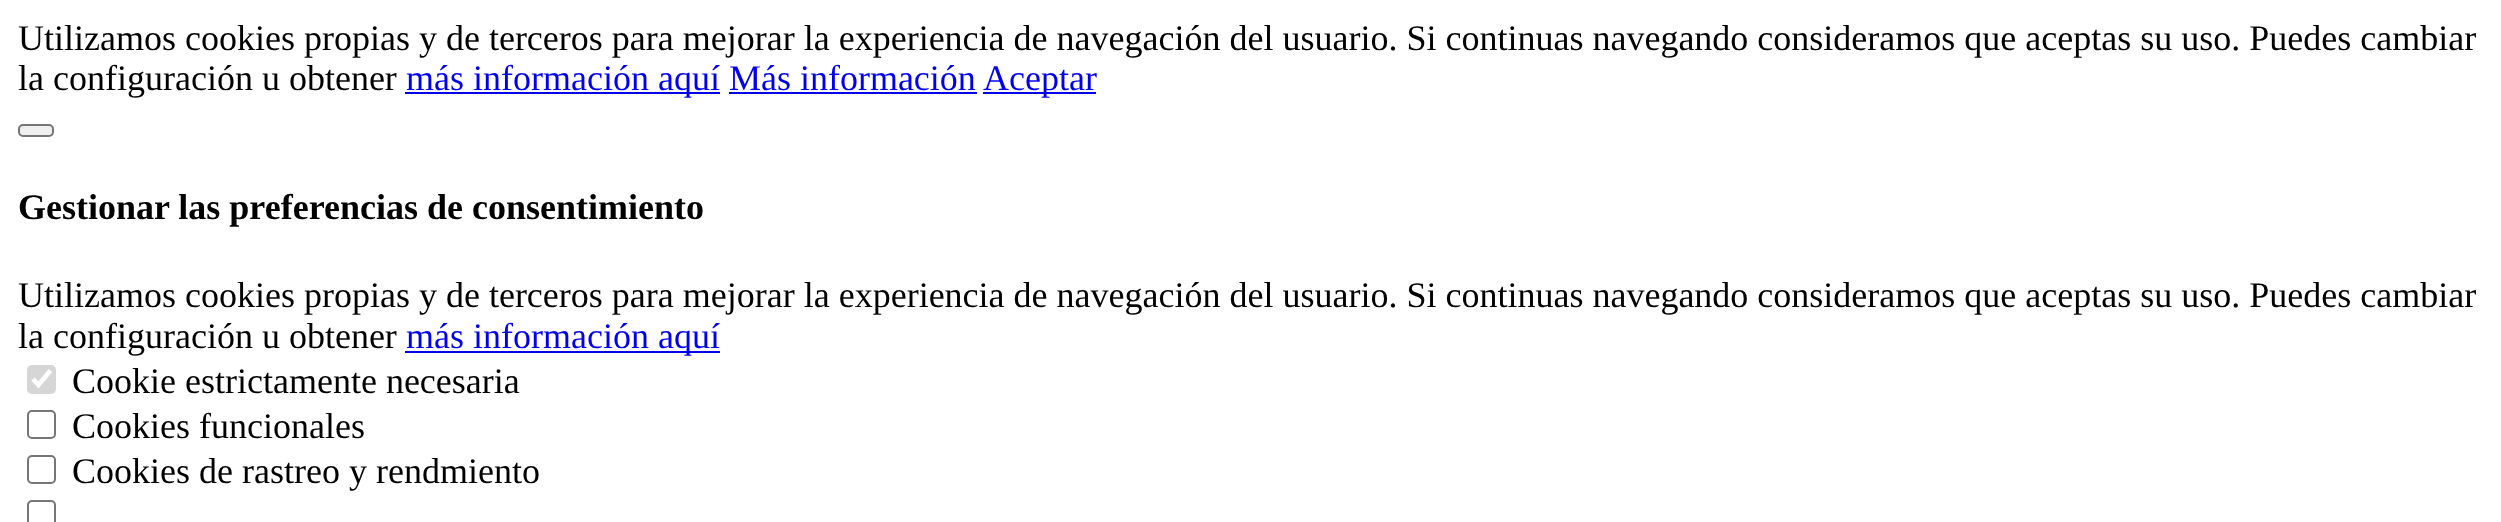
<svg xmlns="http://www.w3.org/2000/svg" xmlns:xlink="http://www.w3.org/1999/xlink" width="2501" height="522" viewBox="0 0 2501 522">
<style>
.cls-1{font:36px Liberation Serif;fill:#000000}
.cls-2{font:36px Liberation Serif;fill:#0000ee}
.cls-3{font:bold 36px Liberation Serif;fill:#000000}
</style>
<rect width="100%" height="100%" fill="#ffffff"/>
<rect fill="#0000ee" x="405" y="92" width="315" height="2"/>
<rect fill="#0000ee" x="729" y="92" width="248" height="2"/>
<rect fill="#0000ee" x="983" y="92" width="113" height="2"/>
<rect fill="#efefef" stroke="#767676" stroke-width="2" x="19" y="125" width="34" height="11" rx="4"/>
<rect fill="#0000ee" x="405" y="351" width="315" height="2"/>
<rect fill="#d6d6d6" x="27" y="365" width="29" height="29" rx="5"/>
<path fill="none" stroke="#ffffff" stroke-width="4.7" d="M33 379L38.5 385L50.5 370.5"/>
<rect fill="none" stroke="#767676" stroke-width="2" x="28" y="411" width="27" height="27" rx="4"/>
<rect fill="none" stroke="#767676" stroke-width="2" x="28" y="456" width="27" height="27" rx="4"/>
<rect fill="none" stroke="#767676" stroke-width="2" x="28" y="501" width="27" height="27" rx="4"/>
<text class="cls-1"><tspan x="18" y="50">Utilizamos cookies propias y de terceros para mejorar la experiencia de navegación del usuario. Si continuas navegando consideramos que aceptas su uso. Puedes cambiar</tspan><tspan x="18" y="90">la configuración u obtener</tspan></text>
<text class="cls-2" x="406" y="90">más información aquí Más información</text>
<text class="cls-2" x="983" y="90">Aceptar</text>
<text class="cls-3" x="18" y="219">Gestionar las preferencias de consentimiento</text>
<text class="cls-1"><tspan x="18" y="307">Utilizamos cookies propias y de terceros para mejorar la experiencia de navegación del usuario. Si continuas navegando consideramos que aceptas su uso. Puedes cambiar</tspan><tspan x="18" y="348">la configuración u obtener</tspan></text>
<text class="cls-2" x="406" y="348">más información aquí</text>
<text class="cls-1"><tspan x="72" y="393">Cookie estrictamente necesaria</tspan><tspan x="72" y="438">Cookies funcionales</tspan><tspan x="72" y="483">Cookies de rastreo y rendmiento</tspan></text>
</svg>
